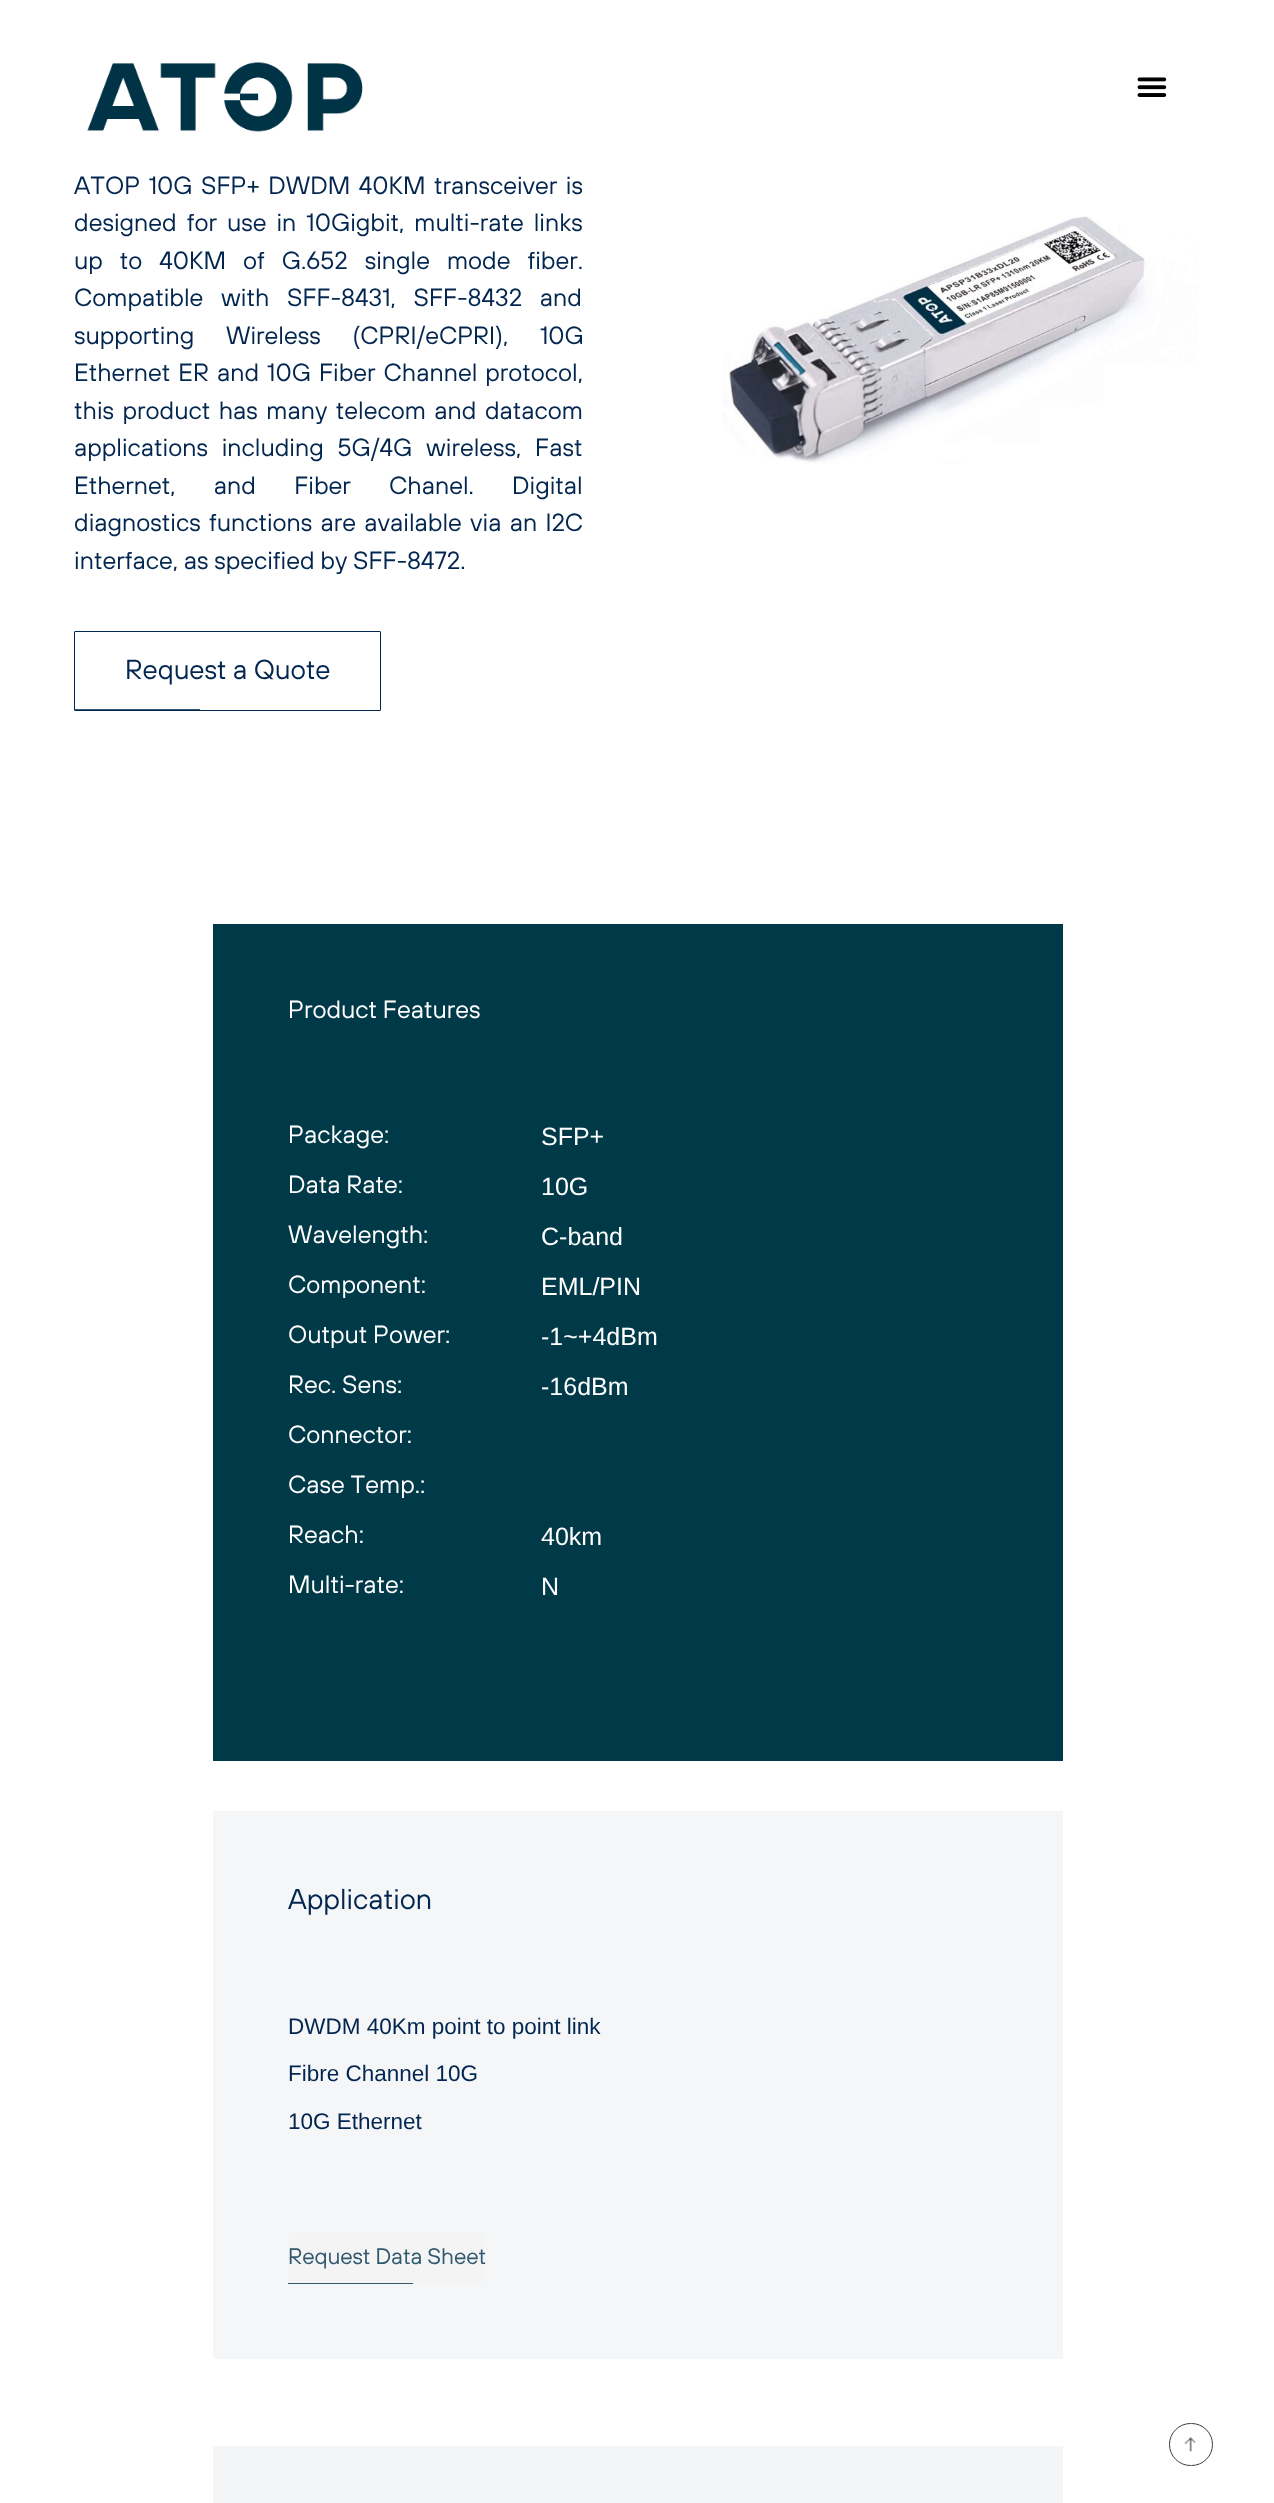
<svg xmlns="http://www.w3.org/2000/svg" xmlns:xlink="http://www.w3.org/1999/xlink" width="1274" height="2503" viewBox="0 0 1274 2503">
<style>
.cls-1{font:25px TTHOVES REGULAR;fill:#02264f}
.cls-2{font:27.5px TTHOVES REGULAR;fill:#02264f}
.cls-3{font:25px TTHOVES REGULAR;fill:#ffffff}
.cls-4{font:25px Liberation Sans;fill:#ffffff}
.cls-5{font:28.75px TTHOVES REGULAR;fill:#02264f}
.cls-6{font:22.5px Liberation Sans;fill:#02264f}
.cls-7{font:22.5px TTHOVES REGULAR;letter-spacing:-0.1px;fill:#30596f}
</style>
<rect width="100%" height="100%" fill="#ffffff"/>
<image xlink:href="image0.png" x="87" y="62" width="276" height="70"/>
<image xlink:href="image1.png" x="1137" y="77" width="30" height="20"/>
<rect fill="none" stroke="#02264f" x="74.5" y="631.5" width="306" height="79" rx="0.5"/>
<rect fill="#31596f" x="75" y="709" width="125" height="1"/>
<image xlink:href="image2.png" x="722" y="216" width="476" height="248"/>
<rect fill="#003947" x="213" y="924" width="850" height="837"/>
<rect fill="#f4f6f8" x="213" y="1811" width="850" height="548"/>
<rect fill="#f4f4f4" x="288" y="2233" width="197" height="51" rx="5"/>
<rect fill="#1f4b63" fill-opacity="0.92" x="288" y="2283" width="125" height="1"/>
<rect fill="#f3f5f7" x="213" y="2446" width="850" height="57"/>
<rect fill="none" stroke="#3d3d3d" x="1169.5" y="2423.5" width="43" height="42" rx="21"/>
<image xlink:href="image3.png" x="1184" y="2437" width="12" height="15"/>
<text class="cls-1"><tspan x="74" y="194" word-spacing="2.75">ATOP 10G SFP+ DWDM 40KM transceiver is</tspan><tspan x="74" y="231" word-spacing="4.25">designed for use in 10Gigbit, multi-rate links</tspan><tspan x="74" y="269" word-spacing="11.25">up to 40KM of G.652 single mode fiber.</tspan><tspan x="74" y="306" word-spacing="12">Compatible with SFF-8431, SFF-8432 and</tspan><tspan x="74" y="344" word-spacing="26">supporting Wireless (CPRI/eCPRI), 10G</tspan><tspan x="74" y="381" word-spacing="2.25">Ethernet ER and 10G Fiber Channel protocol,</tspan><tspan x="74" y="419" word-spacing="2.75">this product has many telecom and datacom</tspan><tspan x="74" y="456" word-spacing="8">applications including 5G/4G wireless, Fast</tspan><tspan x="74" y="494" word-spacing="32.5">Ethernet, and Fiber Chanel. Digital</tspan><tspan x="74" y="531" word-spacing="2.5">diagnostics functions are available via an I2C</tspan><tspan x="74" y="569">interface, as specified by SFF-8472.</tspan></text>
<text class="cls-2" x="125" y="679">Request a Quote</text>
<text class="cls-3" x="288" y="1018">Product Features</text>
<text class="cls-3" x="288" y="1143">Package:</text>
<text class="cls-4" x="541" y="1145">SFP+</text>
<text class="cls-3" x="288" y="1193">Data Rate:</text>
<text class="cls-4" x="541" y="1195">10G</text>
<text class="cls-3" x="288" y="1243">Wavelength:</text>
<text class="cls-4" x="541" y="1245">C-band</text>
<text class="cls-3" x="288" y="1293">Component:</text>
<text class="cls-4" x="541" y="1295">EML/PIN</text>
<text class="cls-3" x="288" y="1343">Output Power:</text>
<text class="cls-4" x="541" y="1345">-1~+4dBm</text>
<text class="cls-3" x="288" y="1393">Rec. Sens:</text>
<text class="cls-4" x="541" y="1395">-16dBm</text>
<text class="cls-3" x="288" y="1443">Connector:</text>
<text class="cls-3" x="288" y="1493">Case Temp.:</text>
<text class="cls-3" x="288" y="1543">Reach:</text>
<text class="cls-4" x="541" y="1545">40km</text>
<text class="cls-3" x="288" y="1593">Multi-rate:</text>
<text class="cls-4" x="541" y="1595">N</text>
<text class="cls-5" x="288" y="1909">Application</text>
<text class="cls-6" x="288" y="2034">DWDM 40Km point to point link</text>
<text class="cls-6" x="288" y="2081">Fibre Channel 10G</text>
<text class="cls-6" x="288" y="2129">10G Ethernet</text>
<text class="cls-7" x="288" y="2264">Request Data Sheet</text>
</svg>
